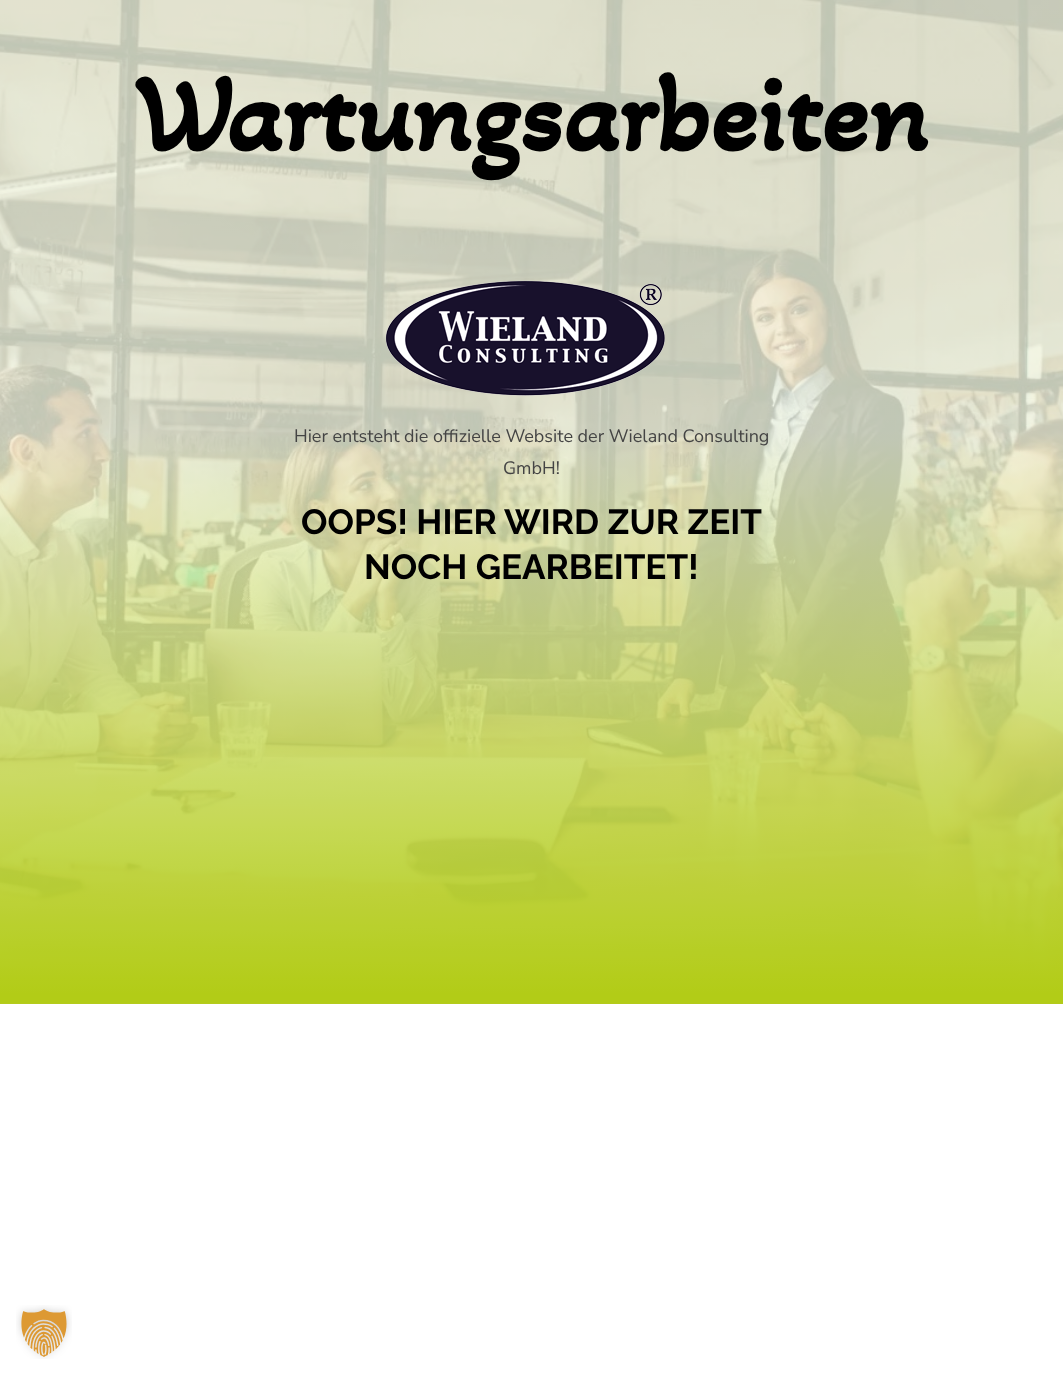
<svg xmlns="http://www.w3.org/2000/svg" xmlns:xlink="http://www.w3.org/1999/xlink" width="1063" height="1377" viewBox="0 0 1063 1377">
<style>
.cls-1{font:bold 110px Akaya Kanadaka;fill:#000000}
.cls-2{font:200 18px Nunito Sans;fill:#444444}
.cls-3{font:100 35px Raleway;fill:#000000}
</style>
<rect width="100%" height="100%" fill="#ffffff"/>
<image xlink:href="image0.png" x="0" y="0" width="1063" height="1004"/>
<image xlink:href="image1.png" x="385" y="280" width="280" height="116"/>
<image xlink:href="image2.png" x="16" y="1305" width="56" height="54"/>
<text class="cls-1" x="135" y="150">Wartungsarbeiten</text>
<text class="cls-2" x="294" y="442">Hier entsteht die offizielle Website der Wieland Consulting</text>
<text class="cls-2" x="503" y="474">GmbH!</text>
<text class="cls-3" x="301" y="534">OOPS! HIER WIRD ZUR ZEIT</text>
<text class="cls-3" x="364" y="579">NOCH GEARBEITET!</text>
</svg>
